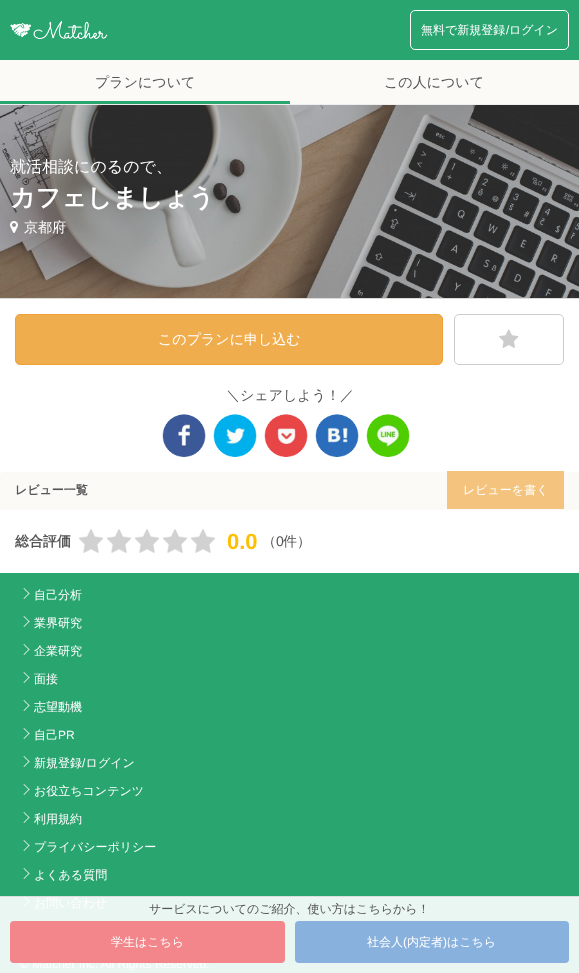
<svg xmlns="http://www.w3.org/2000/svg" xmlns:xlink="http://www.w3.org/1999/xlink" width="579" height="973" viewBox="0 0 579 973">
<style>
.cls-1{font:500 12px WenQuanYi Zen Hei;fill:#ffffff}
.cls-2{font:12px Liberation Sans;fill:#ffffff}
.cls-3{font:500 14px WenQuanYi Zen Hei;fill:#555555}
.cls-4{font:500 16px WenQuanYi Zen Hei;fill:#ffffff}
.cls-5{font:bold 25px WenQuanYi Zen Hei;fill:#ffffff}
.cls-6{font:500 14px WenQuanYi Zen Hei;fill:#ffffff}
.cls-7{font:bold 12px WenQuanYi Zen Hei;fill:#555555}
.cls-8{font:bold 14px WenQuanYi Zen Hei;fill:#555555}
.cls-9{font:bold 22px Liberation Sans;fill:#ffbf00}
.cls-10{font:14px Liberation Sans;fill:#555555}
.cls-11{font:500 12px WenQuanYi Zen Hei;fill:#555555}
</style>
<rect width="100%" height="100%" fill="#fbfaf7"/>
<rect fill="#29a570" x="0" y="0" width="579" height="60"/>
<image xlink:href="image0.png" x="10" y="20" width="98" height="20"/>
<rect fill="none" stroke="#ffffff" x="410.5" y="10.5" width="158" height="39" rx="4.5"/>
<rect fill="#eeeeee" x="0" y="104" width="579" height="1"/>
<rect fill="#29a570" x="0" y="101" width="290" height="3"/>
<rect fill="#ffffff" x="0" y="299" width="579" height="274"/>
<rect fill="#dcdbd8" x="0" y="298" width="579" height="1"/>
<image xlink:href="image1.png" x="0" y="105" width="579" height="193"/>
<image xlink:href="image2.png" x="10" y="221" width="8" height="12"/>
<rect fill="#f0ad4e" stroke="#eea236" x="15.5" y="314.5" width="427" height="50" rx="4.5"/>
<rect fill="none" stroke="#cccccc" x="454.5" y="314.5" width="109" height="50" rx="4.5"/>
<image xlink:href="image3.png" x="499" y="329" width="20" height="19"/>
<image xlink:href="image4.png" x="162" y="414" width="44" height="43"/>
<image xlink:href="image5.png" x="213" y="414" width="44" height="43"/>
<image xlink:href="image6.png" x="264" y="414" width="44" height="43"/>
<image xlink:href="image7.png" x="315" y="414" width="44" height="43"/>
<image xlink:href="image8.png" x="366" y="414" width="44" height="43"/>
<path fill="#fbfaf7" d="M3 472H576C577.5 472 579 473.5 579 475V510H0V475C0 473.5 1.5 472 3 472Z"/>
<rect fill="#f4c37d" x="447" y="471" width="117" height="38"/>
<image xlink:href="image9.png" x="79" y="529" width="24" height="24"/>
<image xlink:href="image9.png" x="107" y="529" width="24" height="24"/>
<image xlink:href="image9.png" x="135" y="529" width="24" height="24"/>
<image xlink:href="image9.png" x="163" y="529" width="24" height="24"/>
<image xlink:href="image9.png" x="191" y="529" width="24" height="24"/>
<rect fill="#eaf6f1" x="0" y="897" width="579" height="76"/>
<path fill="#ffffff" d="M23.5 896.5L24 896L29.5 901.5L29 902Z"/>
<rect fill="#dddddd" x="0" y="896" width="579" height="1"/>
<rect fill="#89b1dd" x="295" y="921" width="274" height="42" rx="4"/>
<rect fill="#29a570" x="0" y="573" width="579" height="323"/>
<path fill="#ffffff" d="M23.5 588.5L24 588L29.5 593.5L29 594Z"/>
<path fill="#ffffff" d="M23.5 598.5L29 593L29.5 593.5L24 599Z"/>
<path fill="#ffffff" d="M23.5 616.5L24 616L29.5 621.5L29 622Z"/>
<path fill="#ffffff" d="M23.5 626.5L29 621L29.5 621.5L24 627Z"/>
<path fill="#ffffff" d="M23.5 644.5L24 644L29.5 649.5L29 650Z"/>
<path fill="#ffffff" d="M23.5 654.5L29 649L29.5 649.5L24 655Z"/>
<path fill="#ffffff" d="M23.5 672.5L24 672L29.5 677.5L29 678Z"/>
<path fill="#ffffff" d="M23.5 682.5L29 677L29.5 677.5L24 683Z"/>
<path fill="#ffffff" d="M23.5 700.5L24 700L29.5 705.5L29 706Z"/>
<path fill="#ffffff" d="M23.5 710.5L29 705L29.5 705.5L24 711Z"/>
<path fill="#ffffff" d="M23.5 728.5L24 728L29.5 733.5L29 734Z"/>
<path fill="#ffffff" d="M23.5 738.5L29 733L29.5 733.5L24 739Z"/>
<path fill="#ffffff" d="M23.5 756.5L24 756L29.5 761.5L29 762Z"/>
<path fill="#ffffff" d="M23.5 766.5L29 761L29.5 761.5L24 767Z"/>
<path fill="#ffffff" d="M23.5 784.5L24 784L29.5 789.5L29 790Z"/>
<path fill="#ffffff" d="M23.5 794.5L29 789L29.5 789.5L24 795Z"/>
<path fill="#ffffff" d="M23.5 812.5L24 812L29.5 817.5L29 818Z"/>
<path fill="#ffffff" d="M23.5 822.5L29 817L29.5 817.5L24 823Z"/>
<path fill="#ffffff" d="M23.5 840.5L24 840L29.5 845.5L29 846Z"/>
<path fill="#ffffff" d="M23.5 850.5L29 845L29.5 845.5L24 851Z"/>
<path fill="#ffffff" d="M23.5 868.5L24 868L29.5 873.5L29 874Z"/>
<path fill="#ffffff" d="M23.5 878.5L29 873L29.5 873.5L24 879Z"/>
<path fill="#ffffff" d="M23.5 906.5L29 901L29.5 901.5L24 907Z"/>
<text class="cls-1" x="421" y="34">無料で新規登録 ログイン</text>
<text class="cls-2" x="506" y="34">/</text>
<text class="cls-3" x="95" y="87">プランについて</text>
<text class="cls-3" x="384" y="87">この人について</text>
<text class="cls-4" x="10" y="172">就活相談にのるので、</text>
<text class="cls-5" x="10" y="206">カフェしましょう</text>
<text class="cls-6" x="24" y="232">京都府</text>
<text class="cls-6" x="158" y="344">このプランに申し込む</text>
<text class="cls-3" x="226" y="400">＼シェアしよう！／</text>
<text class="cls-7" x="15" y="494">レビュー一覧</text>
<text class="cls-1" x="463" y="494">レビューを書く</text>
<text class="cls-8" x="15" y="546">総合評価</text>
<text class="cls-9" x="227" y="549">0.0</text>
<text class="cls-3" x="262" y="546">（</text>
<text class="cls-10" x="276" y="546">0</text>
<text class="cls-3" x="283" y="546">件）</text>
<text class="cls-11" x="149" y="913">サービスについてのご紹介、使い方はこちらから！</text>
<text class="cls-1" x="367" y="946">社会人</text>
<text class="cls-2" x="403" y="946">(</text>
<text class="cls-1" x="407" y="946">内定者</text>
<text class="cls-2" x="443" y="946">)</text>
<text class="cls-1" x="447" y="946">はこちら</text>
<text class="cls-1" x="34" y="599">自己分析</text>
<text class="cls-1" x="34" y="627">業界研究</text>
<text class="cls-1" x="34" y="655">企業研究</text>
<text class="cls-1" x="34" y="683">面接</text>
<text class="cls-1" x="34" y="711">志望動機</text>
<text class="cls-1" x="34" y="739">自己</text>
<text class="cls-2" x="58" y="739">PR</text>
<text class="cls-1" x="34" y="767">新規登録 ログイン</text>
<text class="cls-2" x="82" y="767">/</text>
<text class="cls-1" x="34" y="795">お役立ちコンテンツ</text>
<text class="cls-1" x="34" y="823">利用規約</text>
<text class="cls-1" x="34" y="851">プライバシーポリシー</text>
<text class="cls-1" x="34" y="879">よくある質問</text>
<text class="cls-1" x="34" y="907">お問い合わせ</text>
<text class="cls-2" x="20" y="968">© Matcher Inc. All Rights Reserved.</text>
<rect fill="#f3868b" x="10" y="921" width="275" height="42" rx="4"/>
<text class="cls-1" x="111" y="946">学生はこちら</text>
</svg>
